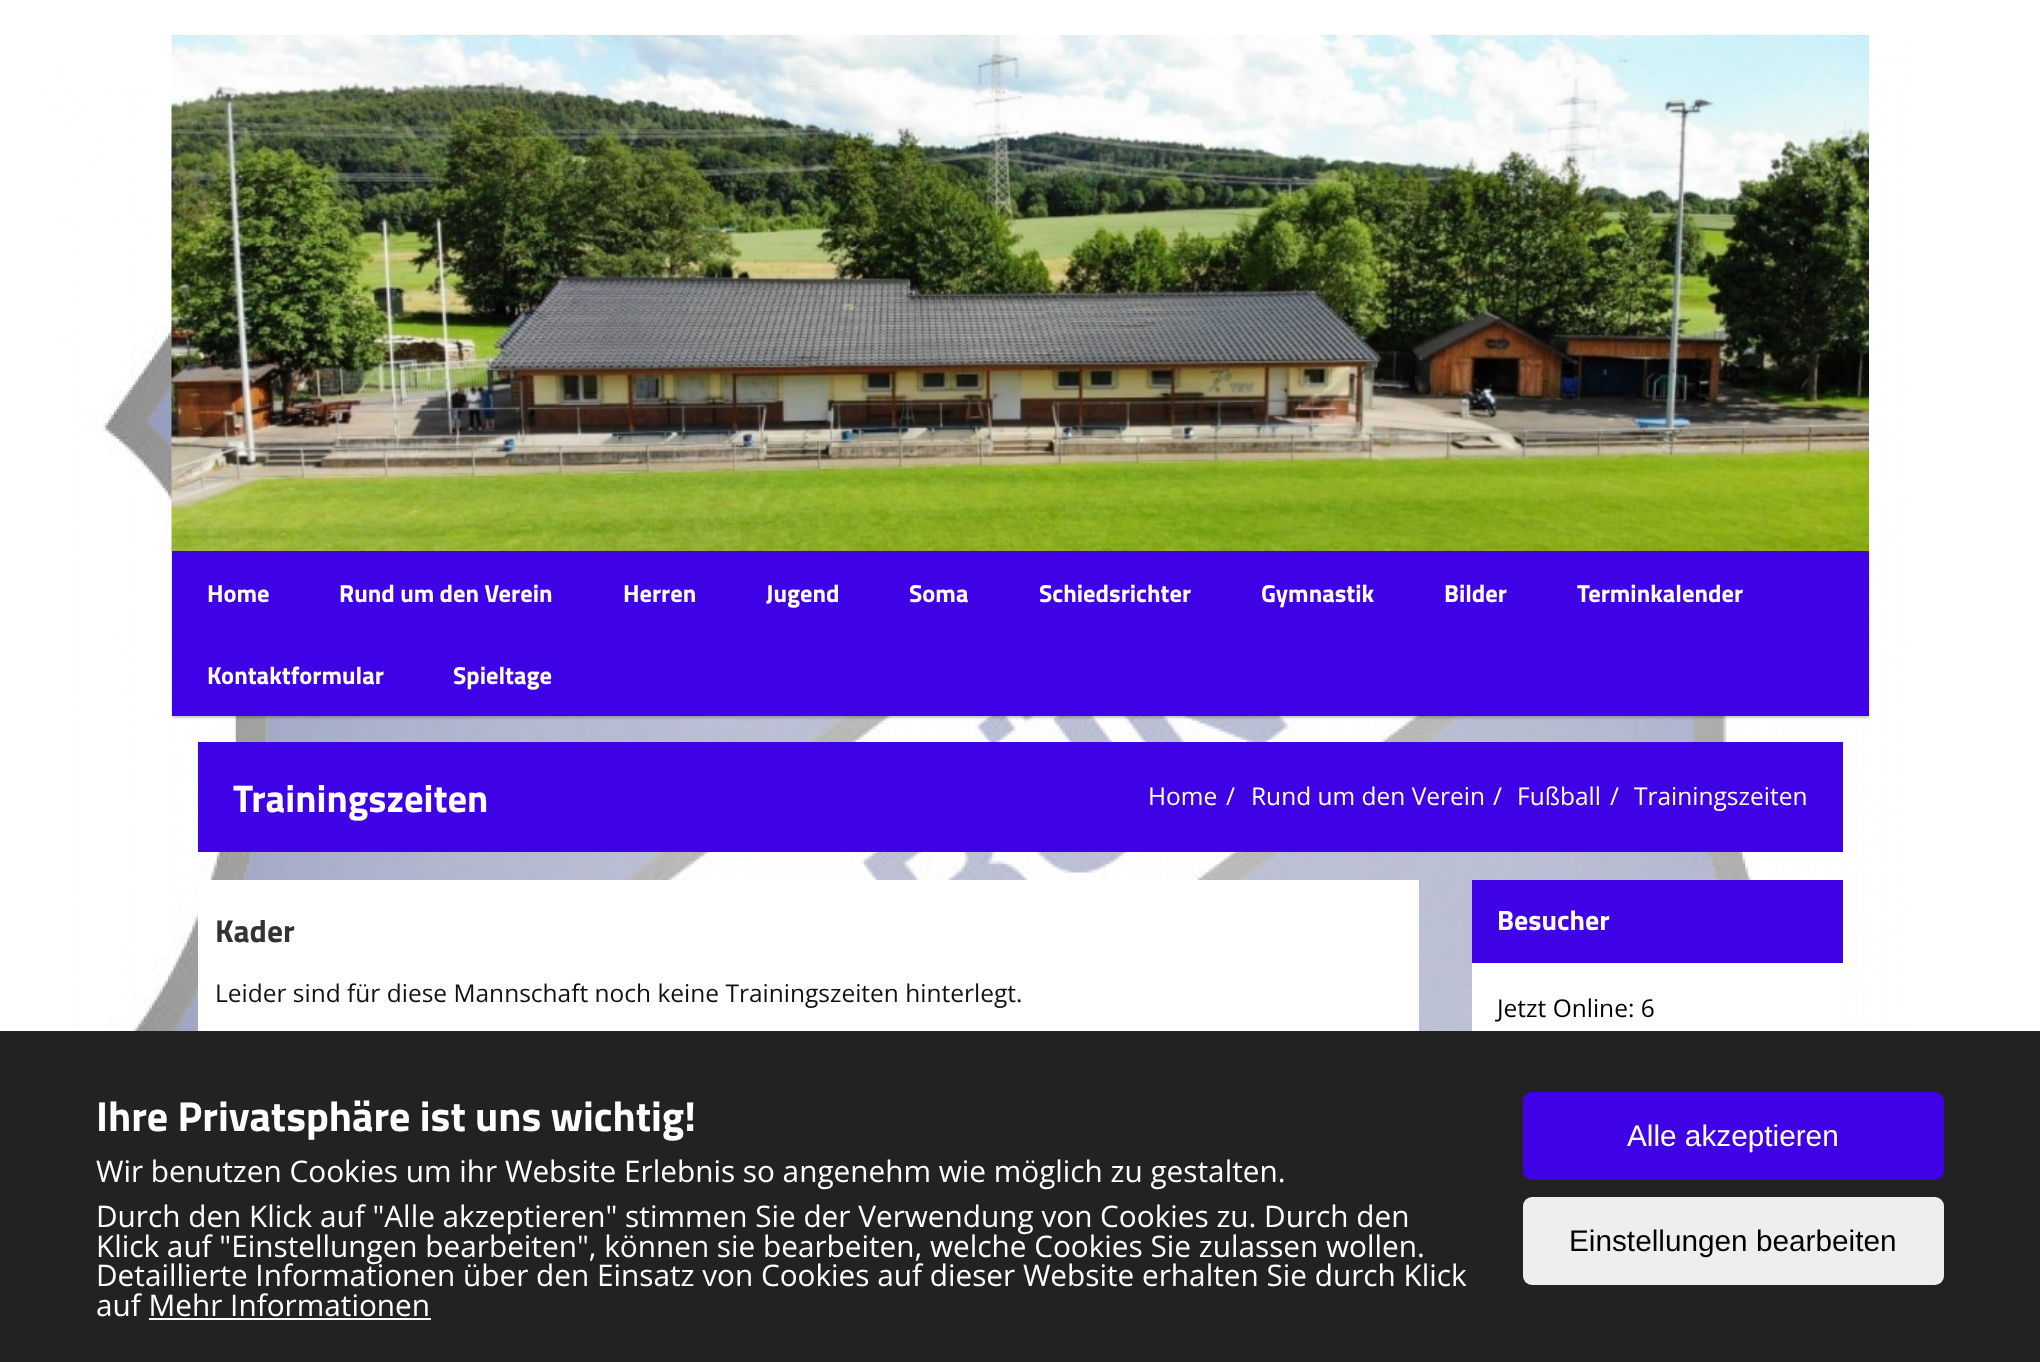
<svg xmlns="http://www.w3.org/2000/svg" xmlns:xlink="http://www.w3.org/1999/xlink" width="2040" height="1362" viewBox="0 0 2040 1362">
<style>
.cls-1{font:bold 24.5px Titillium Web;fill:#ffffff}
.cls-2{font:bold 38.5px Titillium Web;fill:#ffffff}
.cls-3{font:24.5px Open Sans;fill:#ffffff}
.cls-4{font:bold 31.5px Titillium Web;fill:#333333}
.cls-5{font:24.5px Open Sans;fill:#111111}
.cls-6{font:bold 28px Titillium Web;fill:#ffffff}
.cls-7{font:24.5px Open Sans;fill:#000000}
.cls-8{font:bold 42px Titillium Web;fill:#ffffff}
.cls-9{font:29.75px Open Sans;fill:#ffffff}
.cls-10{font:29.75px Liberation Sans;fill:#ffffff}
.cls-11{font:29.75px Liberation Sans;fill:#000000}
</style>
<rect width="100%" height="100%" fill="#ffffff"/>
<image xlink:href="image0.png" x="45" y="44" width="1866" height="987"/>
<image xlink:href="image1.png" x="171" y="35" width="1698" height="517"/>
<rect fill="#000000" fill-opacity="0.2" filter="blur(1px)" x="172" y="553" width="1697" height="165"/>
<rect fill="#3f02e6" x="172" y="551" width="1697" height="165"/>
<rect fill="#3f02e6" x="198" y="742" width="1645" height="110"/>
<rect fill="#ffffff" x="198" y="880" width="1221" height="151"/>
<rect fill="#ffffff" x="1472" y="963" width="371" height="68"/>
<rect fill="#3f02e6" x="1472" y="880" width="371" height="83"/>
<rect fill="#222222" x="0" y="1031" width="2040" height="331"/>
<rect fill="#ffffff" x="149" y="1318" width="282" height="2"/>
<rect fill="#3f02e6" x="1523" y="1092" width="421" height="88" rx="9"/>
<rect fill="#eeeeee" x="1523" y="1197" width="421" height="88" rx="9"/>
<text class="cls-1" x="207" y="602">Home</text>
<text class="cls-1" x="339" y="602">Rund um den Verein</text>
<text class="cls-1" x="623" y="602">Herren</text>
<text class="cls-1" x="766" y="602">Jugend</text>
<text class="cls-1" x="909" y="602">Soma</text>
<text class="cls-1" x="1039" y="602">Schiedsrichter</text>
<text class="cls-1" x="1261" y="602">Gymnastik</text>
<text class="cls-1" x="1444" y="602">Bilder</text>
<text class="cls-1" x="1577" y="602">Terminkalender</text>
<text class="cls-1" x="207" y="684">Kontaktformular</text>
<text class="cls-1" x="453" y="684">Spieltage</text>
<text class="cls-2" x="233" y="812">Trainingszeiten</text>
<text class="cls-3" x="1148" y="805">Home</text>
<text class="cls-3" x="1226" y="805">/</text>
<text class="cls-3" x="1251" y="805">Rund um den Verein</text>
<text class="cls-3" x="1493" y="805">/</text>
<text class="cls-3" x="1517" y="805">Fußball</text>
<text class="cls-3" x="1610" y="805">/</text>
<text class="cls-3" x="1634" y="805">Trainingszeiten</text>
<text class="cls-4" x="215" y="942">Kader</text>
<text class="cls-5" x="215" y="1002">Leider sind für diese Mannschaft noch keine Trainingszeiten hinterlegt.</text>
<text class="cls-6" x="1497" y="930">Besucher</text>
<text class="cls-7" x="1497" y="1017">Jetzt Online: 6</text>
<text class="cls-8" x="96" y="1131">Ihre Privatsphäre ist uns wichtig!</text>
<text class="cls-9"><tspan x="96" y="1182">Wir benutzen Cookies um ihr Website Erlebnis so angenehm wie möglich zu gestalten.</tspan><tspan x="96" y="1227">Durch den Klick auf "Alle akzeptieren" stimmen Sie der Verwendung von Cookies zu. Durch den</tspan><tspan x="96" y="1257">Klick auf "Einstellungen bearbeiten", können sie bearbeiten, welche Cookies Sie zulassen wollen.</tspan><tspan x="96" y="1286">Detaillierte Informationen über den Einsatz von Cookies auf dieser Website erhalten Sie durch Klick</tspan><tspan x="96" y="1316">auf Mehr Informationen</tspan></text>
<text class="cls-10" x="1627" y="1146">Alle akzeptieren</text>
<text class="cls-11" x="1569" y="1251">Einstellungen bearbeiten</text>
</svg>
